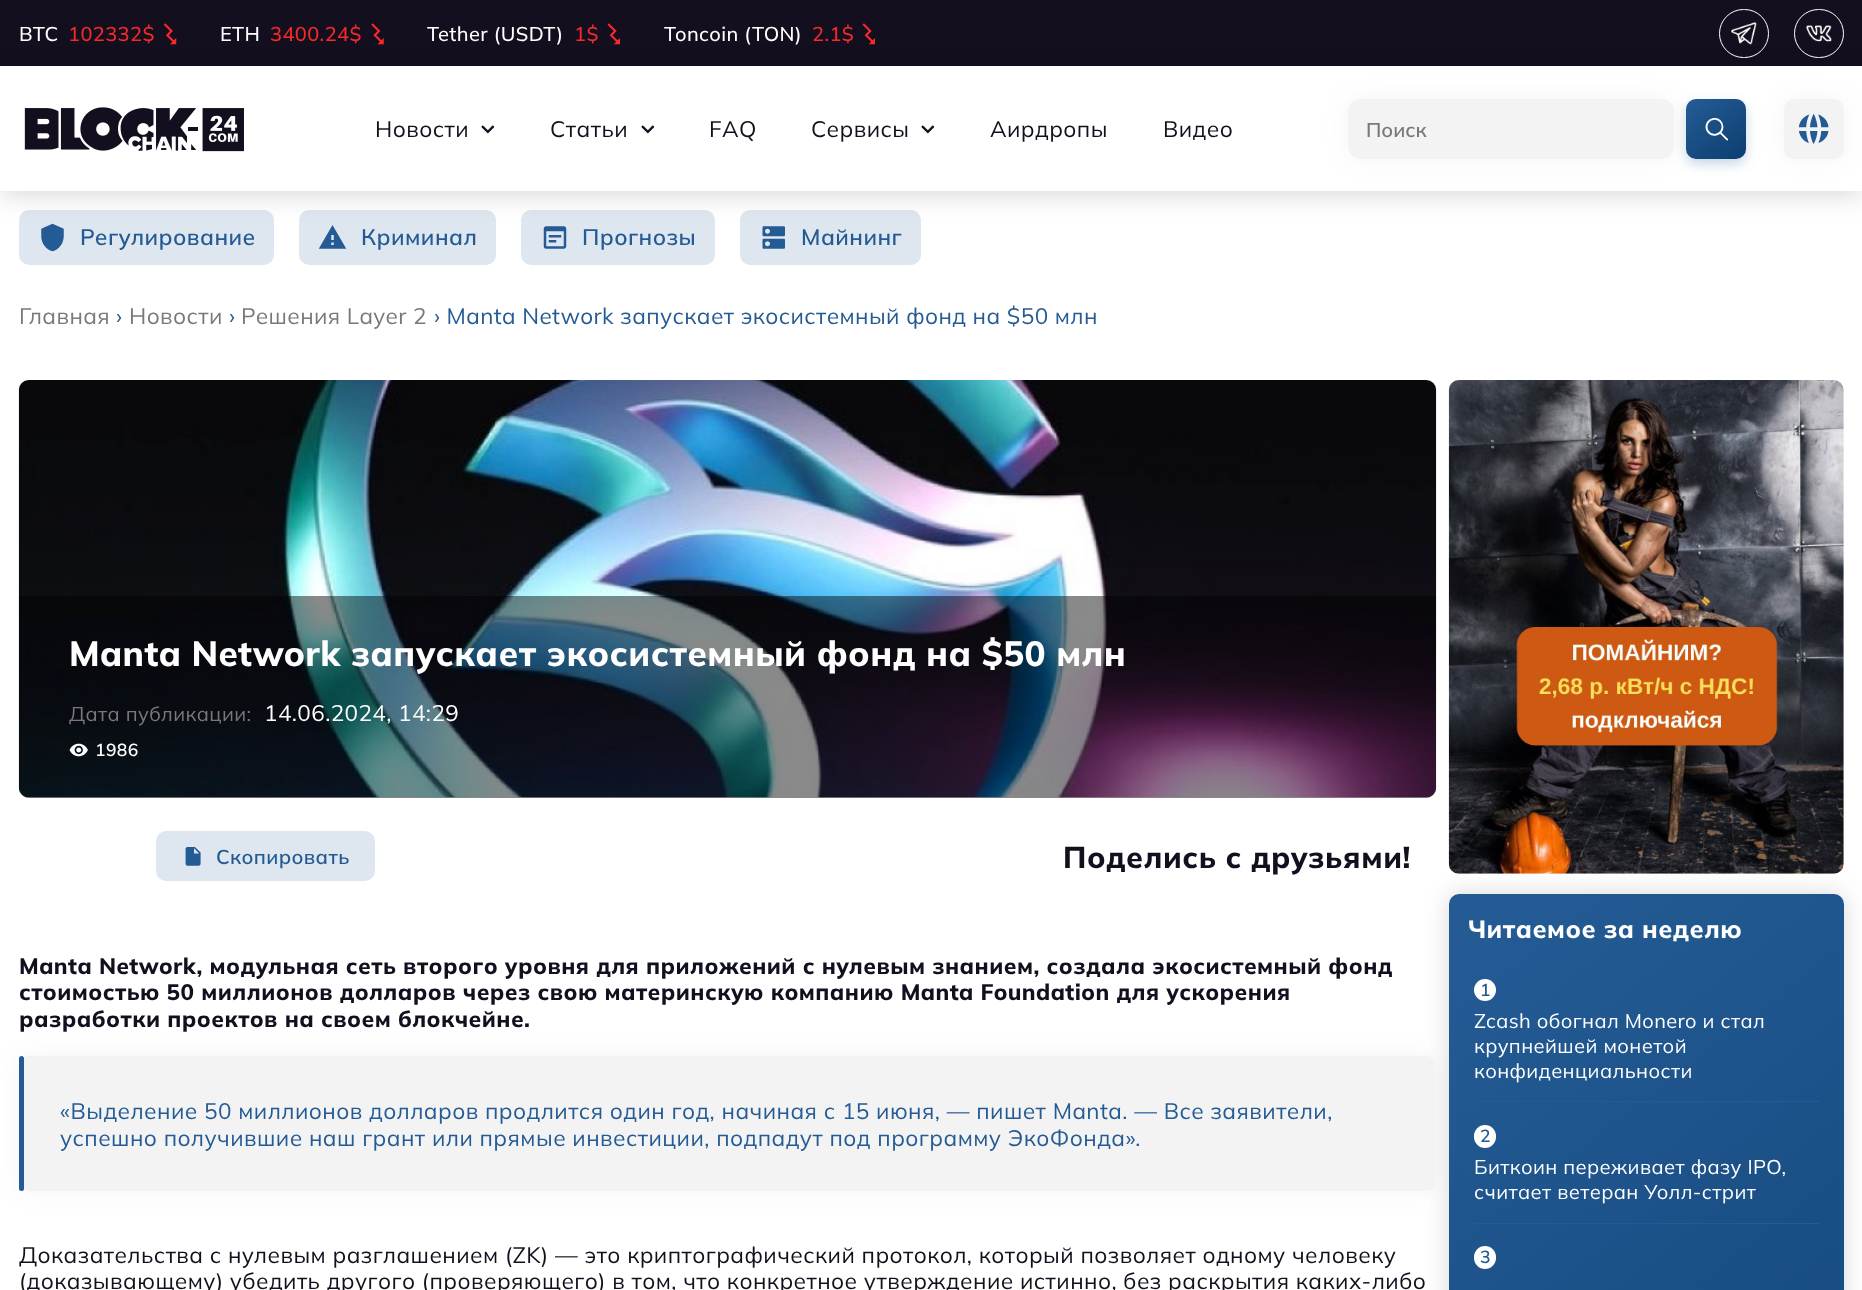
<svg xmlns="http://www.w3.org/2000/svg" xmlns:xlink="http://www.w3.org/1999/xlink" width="1862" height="1290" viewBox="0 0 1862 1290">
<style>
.cls-1{font:500 20px Mulish;letter-spacing:0.4px;fill:#ffffff}
.cls-2{font:500 20px Mulish;letter-spacing:0.4px;fill:#f82929}
.cls-3{font:22.5px Mulish;letter-spacing:0.45px;fill:#130f1e}
.cls-4{font:600 20px Mulish;fill:#797979}
.cls-5{font:600 22.5px Mulish;letter-spacing:0.45px;fill:#245b94}
.cls-6{font:22.5px Mulish;letter-spacing:0.4px;fill:#797979}
.cls-7{font:22.5px Mulish;letter-spacing:0.4px;fill:#245b94}
.cls-8{font:800 35px Mulish;letter-spacing:0.4px;fill:#ffffff}
.cls-9{font:20px Mulish;letter-spacing:0.4px;fill:#797979}
.cls-10{font:22.5px Mulish;letter-spacing:0.4px;fill:#ffffff}
.cls-11{font:600 17.5px Mulish;letter-spacing:0.4px;fill:#ffffff}
.cls-12{font:600 20px Mulish;letter-spacing:0.4px;fill:#245b94}
.cls-13{font:800 30px Mulish;letter-spacing:0.6px;fill:#130f1e}
.cls-14{font:800 22.5px Mulish;letter-spacing:0.45px;fill:#130f1e}
.cls-15{font:22.5px Mulish;letter-spacing:0.45px;fill:#245b94}
.cls-16{font:800 25px Mulish;letter-spacing:0.5px;fill:#ffffff}
.cls-17{font:600 17.5px Mulish;letter-spacing:0.4px;fill:#245b94}
.cls-18{font:20px Mulish;letter-spacing:0.4px;fill:#ffffff}
</style>
<defs>
<clipPath id="clip1"><path d="M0 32H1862V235H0ZM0 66H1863V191H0Z" clip-rule="evenodd"/></clipPath>
<linearGradient id="g1" gradientUnits="userSpaceOnUse" x1="1690" y1="96" x2="1742" y2="162"><stop offset="0.05" stop-color="#245b94"/><stop offset="0.95" stop-color="#0d3f72"/></linearGradient>
<linearGradient id="g2" gradientUnits="userSpaceOnUse" x1="1298" y1="1011" x2="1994" y2="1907"><stop offset="0.05" stop-color="#245b94"/><stop offset="0.95" stop-color="#0d3f72"/></linearGradient>
</defs>
<rect width="100%" height="100%" fill="#ffffff"/>
<rect fill="#130f1e" x="0" y="0" width="1862" height="66"/>
<g clip-path="url(#clip1)">
<rect fill="#130f1e" fill-opacity="0.15" filter="blur(12.5px)" x="0" y="71" width="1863" height="125"/>
</g>
<image xlink:href="image0.png" x="163" y="23" width="14" height="22"/>
<image xlink:href="image1.png" x="371" y="23" width="13" height="22"/>
<image xlink:href="image2.png" x="607" y="23" width="13" height="22"/>
<image xlink:href="image2.png" x="862" y="23" width="13" height="22"/>
<rect fill="none" stroke="#ffffff" x="1719.5" y="9.5" width="49" height="48" rx="24"/>
<image xlink:href="image3.png" x="1731" y="22" width="26" height="23"/>
<rect fill="none" stroke="#ffffff" x="1794.5" y="9.5" width="49" height="48" rx="24"/>
<image xlink:href="image4.png" x="1806" y="25" width="26" height="17"/>
<image xlink:href="image5.png" x="24" y="107" width="220" height="45"/>
<image xlink:href="image6.png" x="481" y="125" width="14" height="9"/>
<image xlink:href="image6.png" x="641" y="125" width="14" height="9"/>
<image xlink:href="image6.png" x="921" y="125" width="14" height="9"/>
<rect fill="#b4b4b4" fill-opacity="0.15" filter="blur(12.5px)" x="1348" y="99" width="326" height="60" rx="13"/>
<rect fill="#f3f3f3" x="1348" y="99" width="326" height="60" rx="13"/>
<rect fill="#245b94" fill-opacity="0.25" filter="blur(6px)" x="1686" y="104" width="60" height="60" rx="10"/>
<rect fill="#b4b4b4" fill-opacity="0.15" filter="blur(12.5px)" x="1784" y="99" width="60" height="60" rx="10"/>
<rect fill="url(#g1)" x="1686" y="99" width="60" height="60" rx="10"/>
<image xlink:href="image7.png" x="1705" y="118" width="23" height="23"/>
<rect fill="#f3f3f3" x="1784" y="99" width="60" height="60" rx="10"/>
<image xlink:href="image8.png" x="1799" y="114" width="30" height="30"/>
<rect fill="#245b94" fill-opacity="0.15" x="19" y="210" width="255" height="55" rx="10"/>
<image xlink:href="image9.png" x="41" y="223" width="23" height="29"/>
<rect fill="#245b94" fill-opacity="0.15" x="299" y="210" width="197" height="55" rx="10"/>
<image xlink:href="image10.png" x="318" y="225" width="29" height="24"/>
<rect fill="#245b94" fill-opacity="0.15" x="521" y="210" width="194" height="55" rx="10"/>
<image xlink:href="image11.png" x="543" y="226" width="24" height="23"/>
<rect fill="#245b94" fill-opacity="0.15" x="740" y="210" width="181" height="55" rx="10"/>
<image xlink:href="image12.png" x="762" y="226" width="23" height="23"/>
<image xlink:href="image13.png" x="18" y="380" width="1419" height="418"/>
<path fill="#000000" fill-opacity="0.46" d="M19 596H1436V788C1436 793.5 1431.5 798 1426 798H29C23.5 798 19 793.5 19 788Z"/>
<image xlink:href="image14.png" x="69" y="743" width="19" height="14"/>
<rect fill="#dee6ef" x="156" y="831" width="219" height="50" rx="10"/>
<image xlink:href="image15.png" x="185" y="847" width="16" height="19"/>
<rect fill="#000000" fill-opacity="0.15" filter="blur(12.5px)" x="1449" y="894" width="395" height="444" rx="10"/>
<rect fill="url(#g2)" x="1449" y="894" width="395" height="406" rx="10"/>
<rect fill="#245b94" x="1474" y="1101" width="345" height="1"/>
<rect fill="#ffffff" x="1474" y="1125" width="22" height="23" rx="11"/>
<rect fill="#245b94" x="1474" y="1223" width="345" height="1"/>
<rect fill="#b4b4b4" fill-opacity="0.15" filter="blur(12.5px)" x="19" y="1056" width="1417" height="135" rx="10"/>
<rect fill="#f3f3f3" x="19" y="1056" width="1417" height="135" rx="10"/>
<rect fill="#245b94" x="19" y="1056" width="5" height="135" rx="2.5"/>
<image xlink:href="image16.png" x="1448" y="380" width="396" height="494"/>
<circle fill="#ffffff" cx="1485" cy="990" r="11"/>
<rect fill="#ffffff" x="1474" y="1246" width="22" height="23" rx="11"/>
<text class="cls-1" x="19" y="41">BTC</text>
<text class="cls-2" x="68" y="41">102332$</text>
<text class="cls-1" x="220" y="41">ETH</text>
<text class="cls-2" x="270" y="41">3400.24$</text>
<text class="cls-1" x="427" y="41">Tether (USDT)</text>
<text class="cls-2" x="574" y="41">1$</text>
<text class="cls-1" x="664" y="41">Toncoin (TON)</text>
<text class="cls-2" x="812" y="41">2.1$</text>
<text class="cls-3" x="375" y="137">Новости</text>
<text class="cls-3" x="550" y="137">Статьи</text>
<text class="cls-3" x="709" y="137">FAQ</text>
<text class="cls-3" x="811" y="137">Сервисы</text>
<text class="cls-3" x="990" y="137">Аирдропы</text>
<text class="cls-3" x="1163" y="137">Видео</text>
<text class="cls-4" x="1366" y="137">Поиск</text>
<text class="cls-5" x="80" y="245">Регулирование</text>
<text class="cls-5" x="361" y="245">Криминал</text>
<text class="cls-5" x="582" y="245">Прогнозы</text>
<text class="cls-5" x="801" y="245">Майнинг</text>
<text class="cls-6" x="19" y="324">Главная</text>
<text class="cls-7" x="116" y="324">›</text>
<text class="cls-6" x="129" y="324">Новости</text>
<text class="cls-7" x="229" y="324">›</text>
<text class="cls-6" x="241" y="324">Решения Layer 2</text>
<text class="cls-7" x="434" y="324">› Manta Network запускает экосистемный фонд на $50 млн</text>
<text class="cls-8" x="69" y="666">Manta Network запускает экосистемный фонд на $50 млн</text>
<text class="cls-9" x="69" y="721">Дата публикации:</text>
<text class="cls-10" x="264" y="721">14.06.2024, 14:29</text>
<text class="cls-11" x="95" y="756">1986</text>
<text class="cls-12" x="216" y="864">Скопировать</text>
<text class="cls-13" x="1063" y="868">Поделись с друзьями!</text>
<text class="cls-14"><tspan x="19" y="974">Manta Network, модульная сеть второго уровня для приложений с нулевым знанием, создала экосистемный фонд</tspan><tspan x="19" y="1000">стоимостью 50 миллионов долларов через свою материнскую компанию Manta Foundation для ускорения</tspan><tspan x="19" y="1027">разработки проектов на своем блокчейне.</tspan></text>
<text class="cls-15"><tspan x="60" y="1119">«Выделение 50 миллионов долларов продлится один год, начиная с 15 июня, — пишет Manta. — Все заявители,</tspan><tspan x="60" y="1146">успешно получившие наш грант или прямые инвестиции, подпадут под программу ЭкоФонда».</tspan></text>
<text class="cls-3"><tspan x="19" y="1263">Доказательства с нулевым разглашением (ZK) — это криптографический протокол, который позволяет одному человеку</tspan><tspan x="19" y="1289">(доказывающему) убедить другого (проверяющего) в том, что конкретное утверждение истинно, без раскрытия каких-либо</tspan></text>
<text class="cls-16" x="1468" y="938">Читаемое за неделю</text>
<text class="cls-17" x="1480" y="996">1</text>
<text class="cls-18"><tspan x="1474" y="1028">Zcash обогнал Monero и стал</tspan><tspan x="1474" y="1053">крупнейшей монетой</tspan><tspan x="1474" y="1078">конфиденциальности</tspan></text>
<text class="cls-17" x="1480" y="1142">2</text>
<text class="cls-18"><tspan x="1474" y="1174">Биткоин переживает фазу IPO,</tspan><tspan x="1474" y="1199">считает ветеран Уолл-стрит</tspan></text>
<text class="cls-17" x="1480" y="1263">3</text>
</svg>
